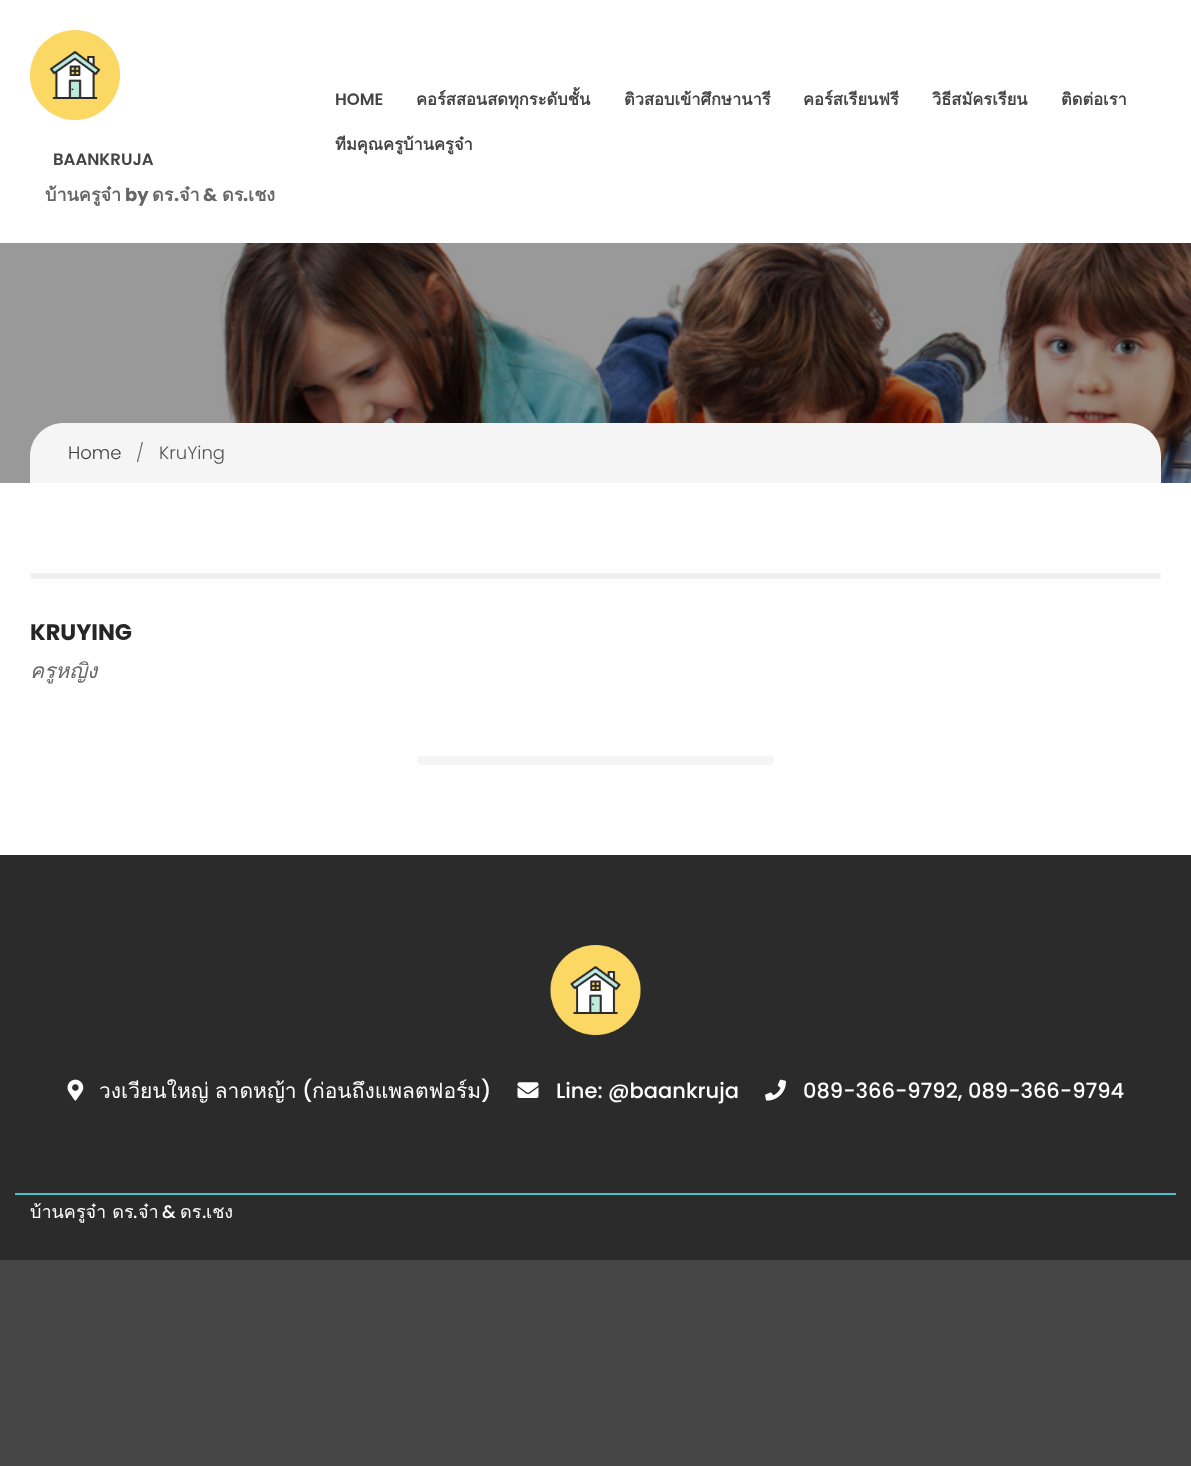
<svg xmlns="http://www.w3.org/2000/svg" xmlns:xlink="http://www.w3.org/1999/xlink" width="1191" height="1466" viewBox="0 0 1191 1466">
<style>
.cls-1{font:600 16.5px Poppins;fill:#444444}
.cls-2{font:bold 16.5px Loma;fill:#444444}
.cls-3{font:bold 18px Loma;fill:#666666}
.cls-4{font:bold 18px Poppins;fill:#666666}
.cls-5{font:300 18px Poppins;fill:#3d3d3d}
.cls-6{font:300 18px Poppins;fill:#6e6e6e}
.cls-7{font:300 18px Poppins;fill:#555555}
.cls-8{font:bold 22.5px Poppins;fill:#262626}
.cls-9{font:italic 21px Loma;fill:#666666}
.cls-10{font:21px Loma;fill:#ffffff}
.cls-11{font:500 21px Poppins;fill:#ffffff}
.cls-12{font:18px Loma;fill:#ffffff}
.cls-13{font:500 18px Poppins;fill:#ffffff}
</style>
<rect width="100%" height="100%" fill="#454545"/>
<rect fill="#ffffff" x="0" y="0" width="1191" height="855"/>
<rect fill="#999999" x="0" y="243" width="218" height="240"/>
<image xlink:href="image0.png" x="30" y="30" width="90" height="90"/>
<image xlink:href="image1.png" x="218" y="243" width="973" height="240"/>
<path fill="#f5f5f5" d="M63 423H1128C1146 423 1161 438 1161 456V483H30V456C30 438 45 423 63 423Z"/>
<rect fill="#f0f0f0" x="30" y="573" width="1131" height="3" rx="1.5"/>
<rect fill="#f0f0f0" x="30" y="576" width="1131" height="3" rx="1.5"/>
<rect fill="#f5f5f5" x="417" y="756" width="357" height="9" rx="4.5"/>
<rect fill="#2b2b2b" x="0" y="855" width="1191" height="405"/>
<rect fill="#49c3c7" x="15" y="1193" width="1161" height="2"/>
<image xlink:href="image2.png" x="550" y="945" width="91" height="90"/>
<image xlink:href="image3.png" x="67" y="1079" width="17" height="22"/>
<image xlink:href="image4.png" x="517" y="1082" width="22" height="16"/>
<image xlink:href="image5.png" x="765" y="1079" width="21" height="22"/>
<text class="cls-1" x="335" y="105">HOME</text>
<text class="cls-2" x="416" y="105">คอร์สสอนสดทุกระดับชั้น</text>
<text class="cls-2" x="624" y="105">ติวสอบเข้าศึกษานารี</text>
<text class="cls-2" x="803" y="105">คอร์สเรียนฟรี</text>
<text class="cls-2" x="932" y="105">วิธีสมัครเรียน</text>
<text class="cls-2" x="1061" y="105">ติดต่อเรา</text>
<text class="cls-2" x="335" y="150">ทีมคุณครูบ้านครูจ๋า</text>
<text class="cls-1" x="53" y="165">BAANKRUJA</text>
<text class="cls-3" x="45" y="201">บ้านครูจ๋า</text>
<text class="cls-4" x="125" y="201">by</text>
<text class="cls-3" x="152" y="201">ดร</text>
<text class="cls-4" x="203" y="201">&amp;</text>
<text class="cls-3" x="222" y="201">ดร</text>
<text class="cls-3" x="248" y="201">เชง</text>
<text class="cls-4" x="174" y="201">.</text>
<text class="cls-3" x="179" y="201">จ๋า</text>
<text class="cls-4" x="243" y="201">.</text>
<text class="cls-5" x="68" y="459">Home</text>
<text class="cls-6" x="136" y="459">/</text>
<text class="cls-7" x="159" y="459">KruYing</text>
<text class="cls-8" x="30" y="640">KRUYING</text>
<text class="cls-9" x="30" y="678">ครูหญิง</text>
<text class="cls-10" x="99" y="1098" word-spacing="-1">วงเวียนใหญ่ ลาดหญ้า</text>
<text class="cls-11" x="302" y="1098">(</text>
<text class="cls-11" x="481" y="1098">)</text>
<text class="cls-10" x="312" y="1098">ก่อนถึงแพลตฟอร์ม</text>
<text class="cls-11" x="556" y="1098">Line: @baankruja</text>
<text class="cls-11" x="803" y="1098">089-366-9792, 089-366-9794</text>
<text class="cls-12" x="30" y="1218">บ้านครูจ๋า ดร</text>
<text class="cls-13" x="162" y="1218">&amp;</text>
<text class="cls-12" x="180" y="1218">ดร</text>
<text class="cls-12" x="206" y="1218">เชง</text>
<text class="cls-13" x="133" y="1218">.</text>
<text class="cls-12" x="138" y="1218">จ๋า</text>
<text class="cls-13" x="202" y="1218">.</text>
</svg>
